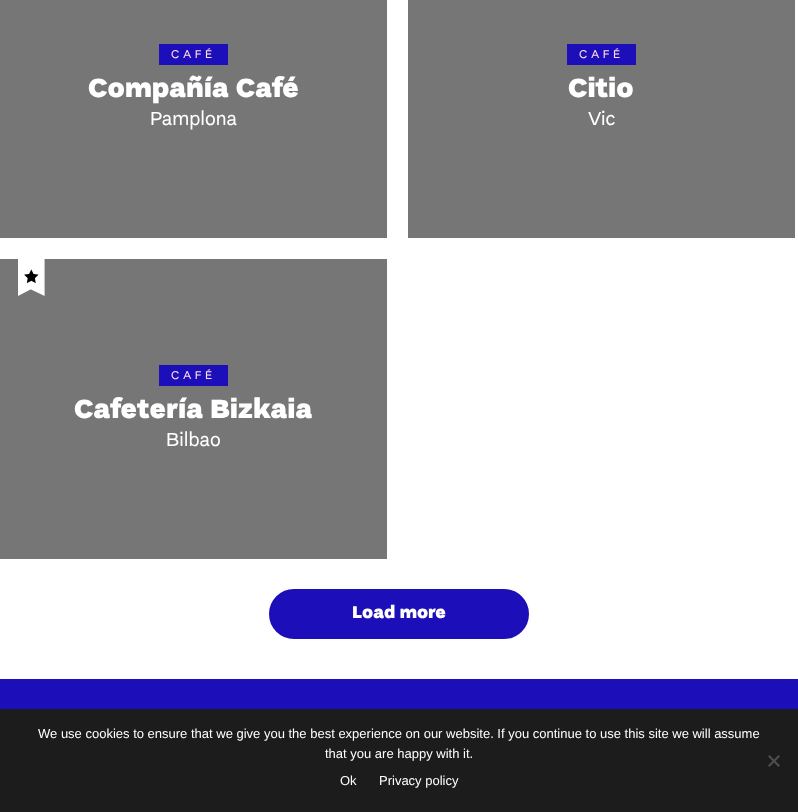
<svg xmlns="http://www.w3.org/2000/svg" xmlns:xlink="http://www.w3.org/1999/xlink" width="798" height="812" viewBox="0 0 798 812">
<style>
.cls-1{font:12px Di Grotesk;letter-spacing:3.5px;fill:#ffdde5}
.cls-2{font:800 28px Di Grotesk;fill:#ffffff}
.cls-3{font:20px Di Grotesk;fill:#ffffff}
.cls-4{font:800 18px Di Grotesk;fill:#ffffff}
.cls-5{font:13px Liberation Sans;fill:#ffffff}
</style>
<rect width="100%" height="100%" fill="#ffffff"/>
<rect fill="#767676" x="0" y="0" width="387" height="238"/>
<rect fill="#1c0fb9" x="159" y="44" width="69" height="21"/>
<rect fill="#767676" x="408" y="0" width="387" height="238"/>
<rect fill="#1c0fb9" x="567" y="44" width="69" height="21"/>
<rect fill="#767676" x="0" y="259" width="387" height="300"/>
<image xlink:href="image0.png" x="18" y="259" width="27" height="37"/>
<rect fill="#1c0fb9" x="159" y="365" width="69" height="21"/>
<rect fill="#1c0fb9" stroke="#1c0fb9" stroke-width="2" x="270" y="590" width="258" height="48" rx="24"/>
<rect fill="#1c0fb9" x="0" y="679" width="798" height="30"/>
<rect fill="#1c1c1c" x="0" y="709" width="798" height="103"/>
<path fill="#4e4e4e" d="M778.5 755L780 756.5L769.5 767L768 765.5Z"/>
<path fill="#4e4e4e" d="M768 756.5L769.5 755L780 765.5L778.5 767Z"/>
<text class="cls-1" x="171" y="58">CAFÉ</text>
<text class="cls-2" x="88" y="97">Compañía Café</text>
<text class="cls-3" x="150" y="125">Pamplona</text>
<text class="cls-1" x="579" y="58">CAFÉ</text>
<text class="cls-2" x="568" y="97">Citio</text>
<text class="cls-3" x="588" y="125">Vic</text>
<text class="cls-1" x="171" y="379">CAFÉ</text>
<text class="cls-2" x="74" y="418">Cafetería Bizkaia</text>
<text class="cls-3" x="166" y="446">Bilbao</text>
<text class="cls-4" x="352" y="618">Load more</text>
<text class="cls-5" x="38" y="738">We use cookies to ensure that we give you the best experience on our website. If you continue to use this site we will assume</text>
<text class="cls-5" x="325" y="758">that you are happy with it.</text>
<text class="cls-5" x="340" y="785">Ok</text>
<text class="cls-5" x="379" y="785">Privacy policy</text>
</svg>
